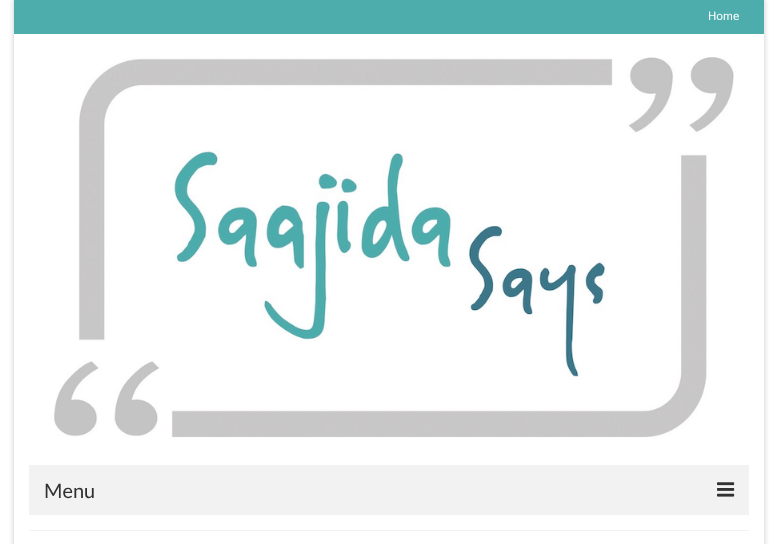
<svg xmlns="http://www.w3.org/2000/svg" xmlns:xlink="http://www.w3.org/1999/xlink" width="778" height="544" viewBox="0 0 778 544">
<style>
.cls-1{font:12px Istok Web;fill:#ffffff}
.cls-2{font:20px Lato;fill:#303030}
</style>
<defs>
<clipPath id="clip1"><path d="M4 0H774V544H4ZM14 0H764V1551H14Z" clip-rule="evenodd"/></clipPath>
</defs>
<rect width="100%" height="100%" fill="#ffffff"/>
<g clip-path="url(#clip1)">
<rect fill="#000000" fill-opacity="0.16" filter="blur(2.5px)" x="13" y="-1" width="752" height="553"/>
</g>
<rect fill="#4dacac" x="14" y="0" width="750" height="34"/>
<image xlink:href="image0.png" x="54" y="57" width="680" height="381"/>
<rect fill="#f2f2f2" x="29" y="465" width="720" height="50"/>
<image xlink:href="image1.png" x="717" y="482" width="18" height="15"/>
<rect fill="#f2f2f2" x="29" y="530" width="720" height="1"/>
<text class="cls-1" x="708" y="20">Home</text>
<text class="cls-2" x="44" y="498">Menu</text>
</svg>
